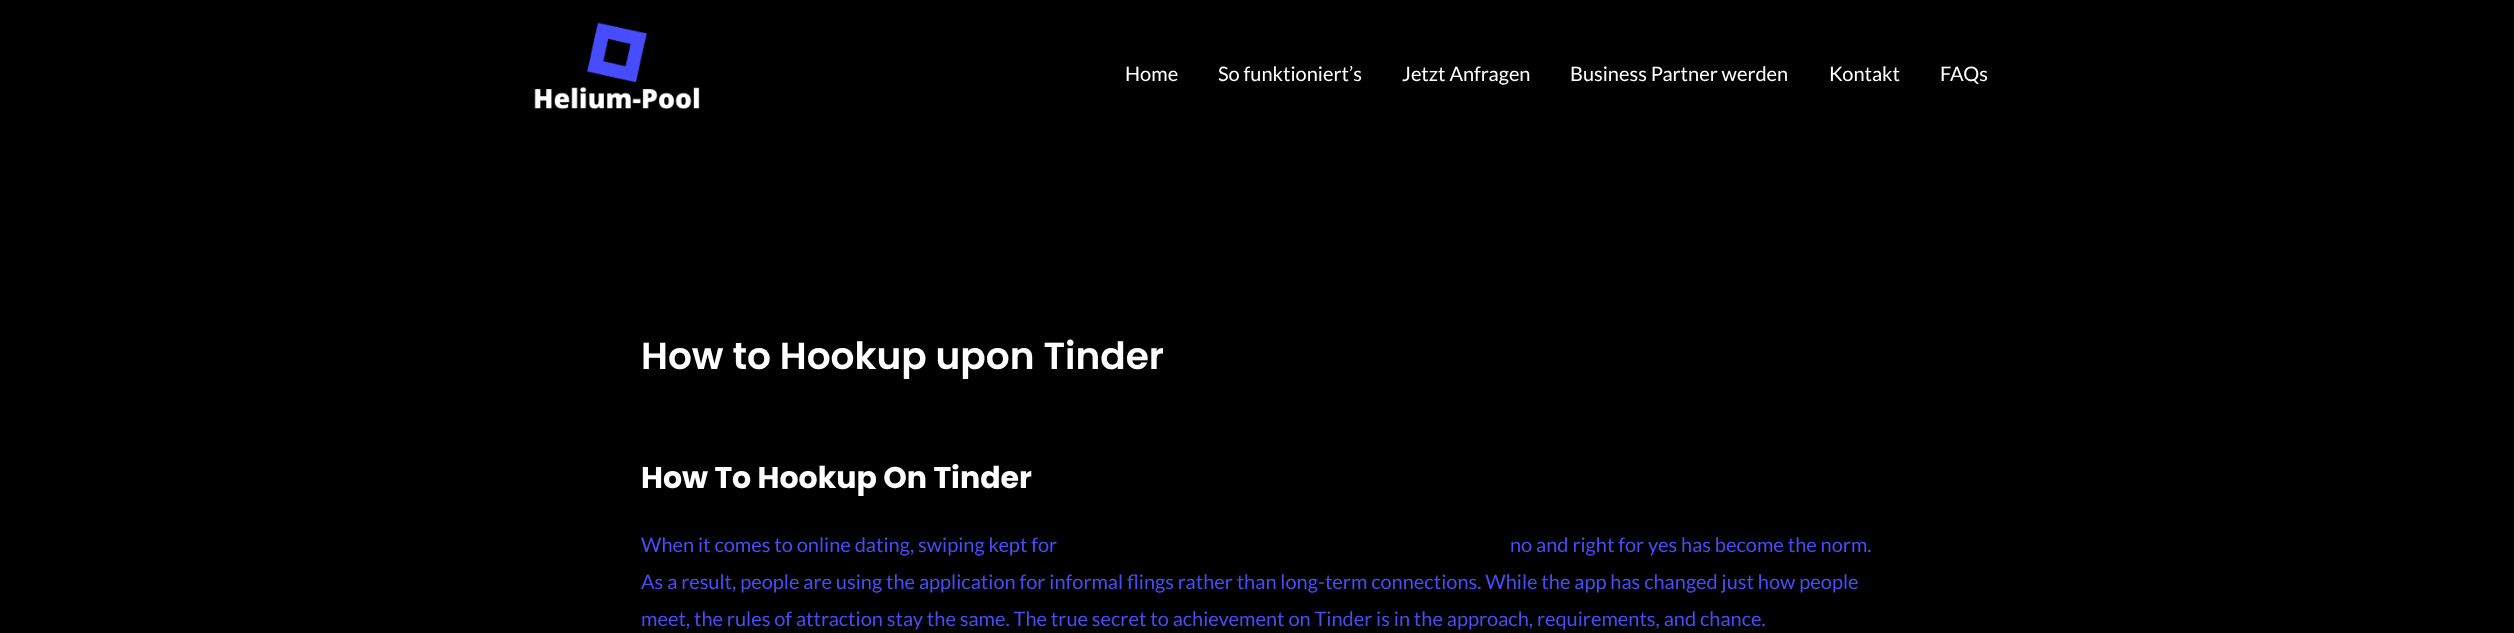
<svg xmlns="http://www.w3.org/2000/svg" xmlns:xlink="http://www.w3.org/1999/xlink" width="2514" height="633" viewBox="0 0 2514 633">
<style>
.cls-1{font:20px Lato;fill:#ffffff}
.cls-2{font:600 37.5px Poppins;fill:#ffffff}
.cls-3{font:bold 30px Poppins;fill:#ffffff}
.cls-4{font:20px Lato;fill:#474df5}
</style>
<rect width="100%" height="100%" fill="#000000"/>
<image xlink:href="image0.png" x="534" y="22" width="166" height="88"/>
<text class="cls-1" x="1125" y="81">Home</text>
<text class="cls-1" x="1218" y="81">So funktioniert’s</text>
<text class="cls-1" x="1402" y="81">Jetzt Anfragen</text>
<text class="cls-1" x="1570" y="81">Business Partner werden</text>
<text class="cls-1" x="1829" y="81">Kontakt</text>
<text class="cls-1" x="1940" y="81">FAQs</text>
<text class="cls-2" x="641" y="369">How to Hookup upon Tinder</text>
<text class="cls-3" x="641" y="488">How To Hookup On Tinder</text>
<text class="cls-4" x="641" y="552">When it comes to online dating, swiping kept for</text>
<text class="cls-4" x="1510" y="552">no and right for yes has become the norm.</text>
<text class="cls-4"><tspan x="641" y="589">As a result, people are using the application for informal flings rather than long-term connections. While the app has changed just how people</tspan><tspan x="641" y="626">meet, the rules of attraction stay the same. The true secret to achievement on Tinder is in the approach, requirements, and chance.</tspan></text>
</svg>
